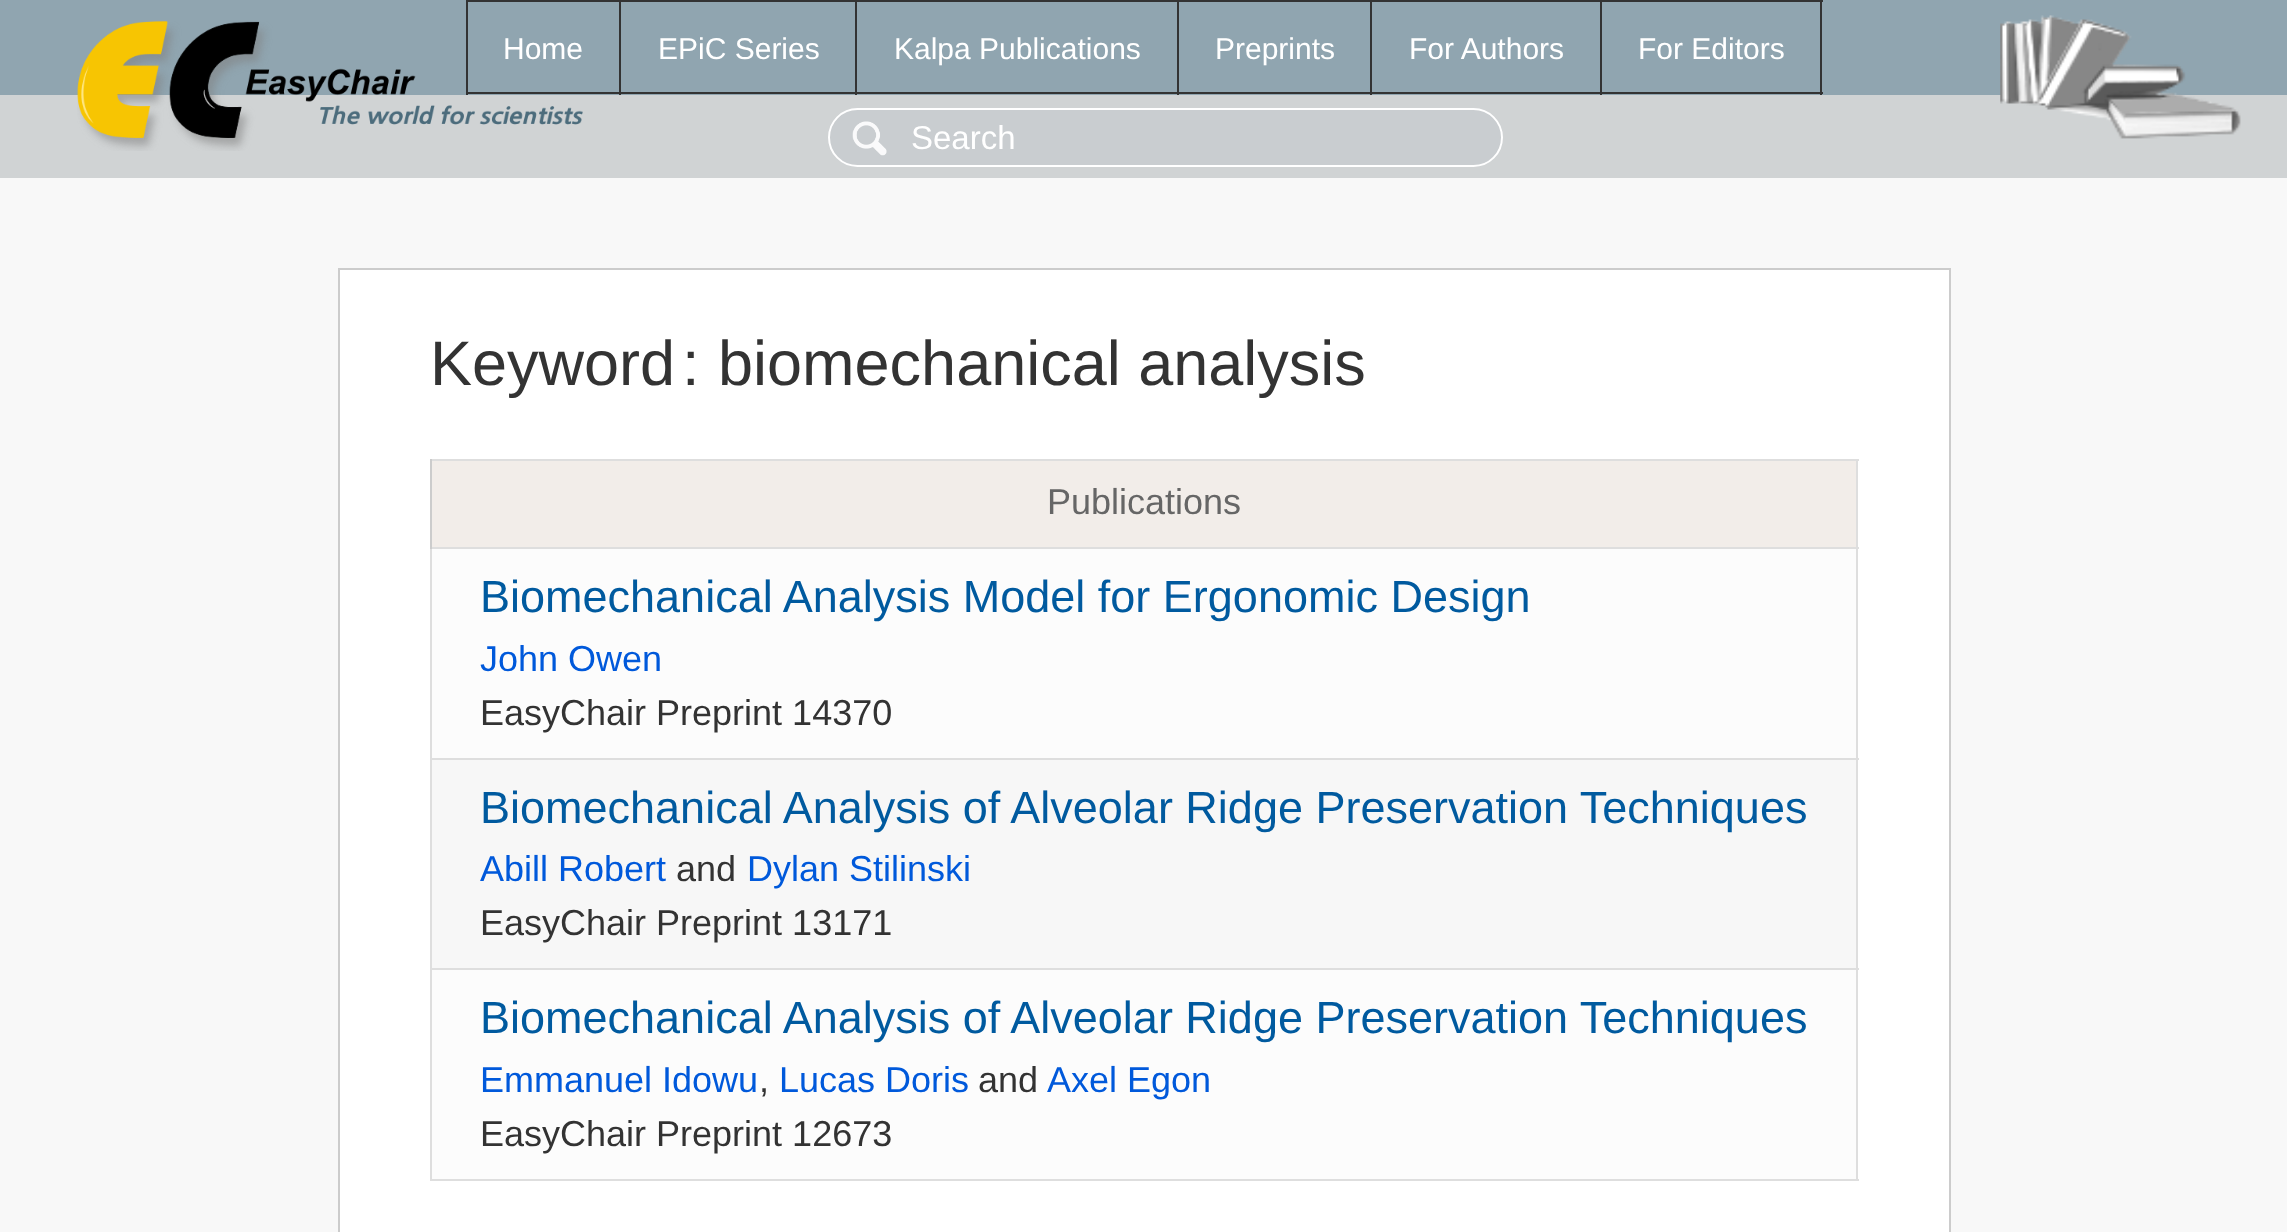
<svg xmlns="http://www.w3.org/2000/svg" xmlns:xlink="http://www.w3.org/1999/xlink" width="2287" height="1232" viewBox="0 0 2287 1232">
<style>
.cls-1{font:30px Liberation Sans;fill:#ffffff}
.cls-2{font:33px Liberation Sans;fill:#ffffff}
.cls-3{font:63px Liberation Sans;fill:#333333}
.cls-4{font:36px Liberation Sans;fill:#666666}
.cls-5{font:45px Liberation Sans;fill:#005a9f}
.cls-6{font:36px Liberation Sans;fill:#0059db}
.cls-7{font:36px Liberation Sans;fill:#333333}
</style>
<rect width="100%" height="100%" fill="#90a5b0"/>
<rect fill="#d0d3d4" x="0" y="97" width="2286" height="79"/>
<rect fill="#d0d3d4" x="0" y="95" width="2287" height="2"/>
<image xlink:href="image0.png" x="77" y="21" width="506" height="130"/>
<rect fill="#333333" x="1600" y="0" width="223" height="2"/>
<rect fill="#333333" x="1820" y="0" width="2" height="95"/>
<rect fill="#333333" x="1600" y="92" width="223" height="2"/>
<rect fill="#333333" x="1600" y="0" width="2" height="95"/>
<rect fill="#333333" x="1370" y="0" width="232" height="2"/>
<rect fill="#333333" x="1370" y="92" width="232" height="2"/>
<rect fill="#333333" x="1370" y="0" width="2" height="95"/>
<rect fill="#333333" x="1177" y="0" width="196" height="2"/>
<rect fill="#333333" x="1177" y="92" width="196" height="2"/>
<rect fill="#333333" x="1177" y="0" width="2" height="95"/>
<rect fill="#333333" x="855" y="0" width="324" height="2"/>
<rect fill="#333333" x="855" y="92" width="324" height="2"/>
<rect fill="#333333" x="855" y="0" width="2" height="95"/>
<rect fill="#333333" x="619" y="0" width="238" height="2"/>
<rect fill="#333333" x="619" y="92" width="238" height="2"/>
<rect fill="#333333" x="619" y="0" width="2" height="95"/>
<rect fill="#333333" x="466" y="0" width="155" height="2"/>
<rect fill="#333333" x="466" y="92" width="155" height="2"/>
<rect fill="#333333" x="466" y="0" width="2" height="95"/>
<image xlink:href="image1.png" x="2000" y="15" width="241" height="124"/>
<rect fill="#d0d3d4" x="2286" y="95" width="1" height="83"/>
<rect fill="#d0d3d4" x="0" y="176" width="2287" height="2"/>
<rect fill="#c9cdd0" x="828" y="108" width="675" height="59" rx="29.5"/>
<image xlink:href="image2.png" x="852" y="121" width="35" height="35"/>
<rect fill="none" stroke="#ffffff" stroke-width="2" x="829" y="109" width="673" height="57" rx="28.5"/>
<rect fill="#f8f8f8" x="0" y="178" width="2287" height="1054"/>
<rect fill="#ffffff" stroke="#cccccc" stroke-width="2" x="339" y="269" width="1611" height="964"/>
<rect fill="#dedede" x="430" y="459" width="1429" height="2"/>
<rect fill="#dedede" x="1856" y="459" width="2" height="722"/>
<rect fill="#dedede" x="430" y="1179" width="1429" height="2"/>
<rect fill="#dedede" x="430" y="549" width="2" height="632"/>
<rect fill="#f2ede9" x="432" y="461" width="1424" height="86"/>
<rect fill="#dedede" x="430" y="547" width="1429" height="2"/>
<rect fill="#cccccc" x="430" y="459" width="2" height="90"/>
<rect fill="#fcfcfc" x="432" y="549" width="1424" height="209"/>
<rect fill="#dedede" x="430" y="758" width="1429" height="2"/>
<rect fill="#f7f7f7" x="432" y="760" width="1424" height="208"/>
<rect fill="#dedede" x="430" y="968" width="1429" height="2"/>
<rect fill="#fcfcfc" x="432" y="970" width="1424" height="209"/>
<text class="cls-1" x="503" y="59">Home</text>
<text class="cls-1" x="658" y="59">EPiC Series</text>
<text class="cls-1" x="894" y="59">Kalpa Publications</text>
<text class="cls-1" x="1215" y="59">Preprints</text>
<text class="cls-1" x="1409" y="59">For Authors</text>
<text class="cls-1" x="1638" y="59">For Editors</text>
<text class="cls-2" x="911" y="149">Search</text>
<text class="cls-3" x="430" y="385">Keyword</text>
<text class="cls-3" x="682" y="385">:</text>
<text class="cls-3" x="718" y="385">biomechanical analysis</text>
<text class="cls-4" x="1047" y="514">Publications</text>
<text class="cls-5" x="480" y="612">Biomechanical Analysis Model for Ergonomic Design</text>
<text class="cls-6" x="480" y="671">John Owen</text>
<text class="cls-7" x="480" y="725">EasyChair Preprint 14370</text>
<text class="cls-5" x="480" y="823">Biomechanical Analysis of Alveolar Ridge Preservation Techniques</text>
<text class="cls-6" x="480" y="881">Abill Robert</text>
<text class="cls-7" x="676" y="881">and</text>
<text class="cls-6" x="747" y="881">Dylan Stilinski</text>
<text class="cls-7" x="480" y="935">EasyChair Preprint 13171</text>
<text class="cls-5" x="480" y="1033">Biomechanical Analysis of Alveolar Ridge Preservation Techniques</text>
<text class="cls-6" x="480" y="1092">Emmanuel Idowu</text>
<text class="cls-7" x="759" y="1092">,</text>
<text class="cls-6" x="779" y="1092">Lucas Doris</text>
<text class="cls-7" x="978" y="1092">and</text>
<text class="cls-6" x="1047" y="1092">Axel Egon</text>
<text class="cls-7" x="480" y="1146">EasyChair Preprint 12673</text>
</svg>
